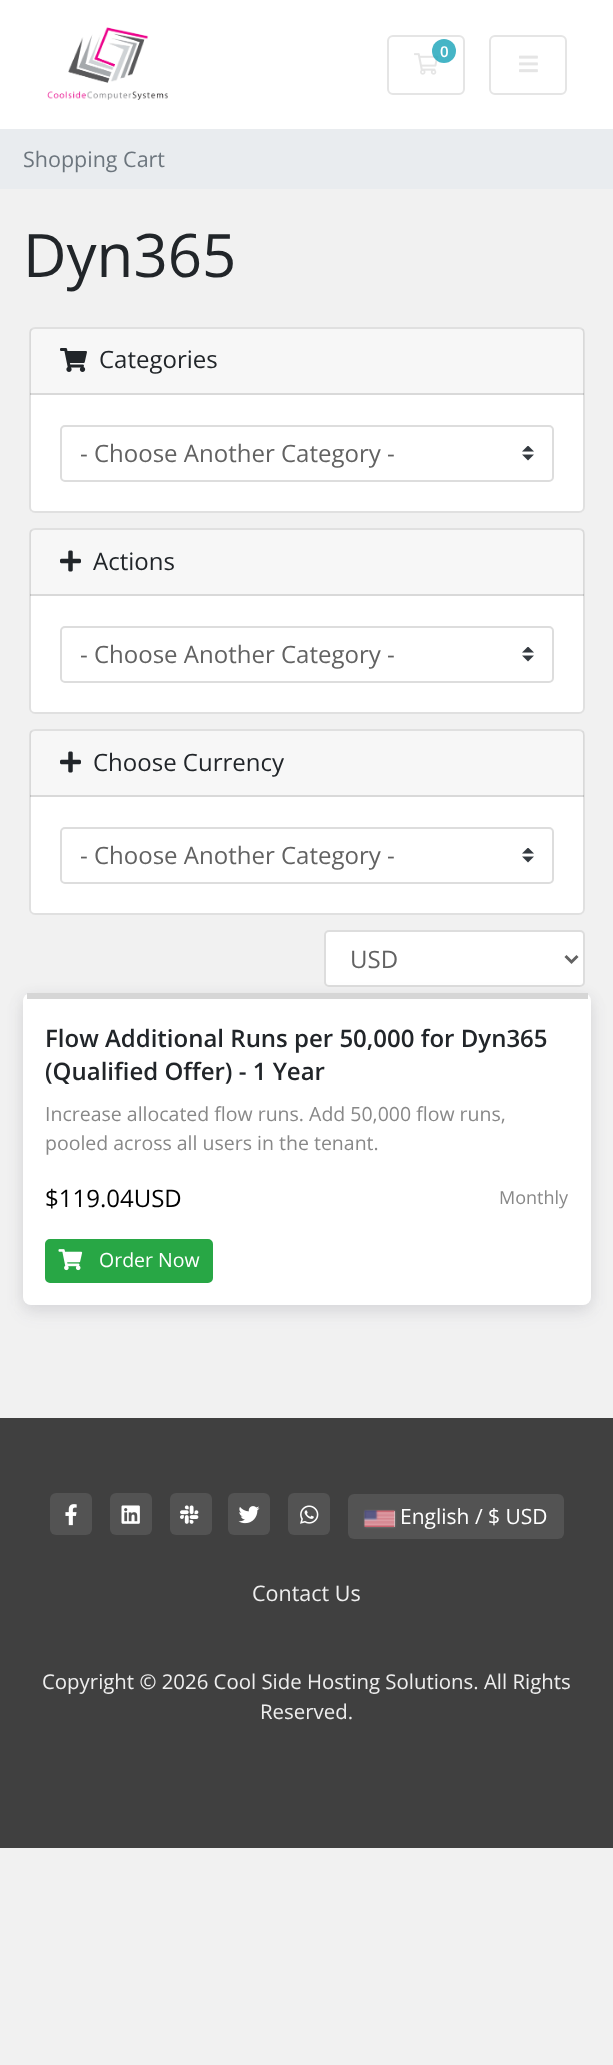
<svg xmlns="http://www.w3.org/2000/svg" xmlns:xlink="http://www.w3.org/1999/xlink" width="613" height="2065" viewBox="0 0 613 2065">
<style>
.cls-1{font:600 15px Open Sans;fill:#ffffff}
.cls-2{font:21.5px Open Sans;fill:#6c757d}
.cls-3{font:60px Open Sans;fill:#212529}
.cls-4{font:24px Open Sans;fill:#212529}
.cls-5{font:24px Open Sans;fill:#626262}
.cls-6{font:600 24px Open Sans;fill:#212529}
.cls-7{font:19.5px Open Sans;fill:#888888}
.cls-8{font:24px Open Sans;fill:#000000}
.cls-9{font:18px Open Sans;fill:#888888}
.cls-10{font:19.5px Open Sans;fill:#ffffff}
.cls-11{font:21px Open Sans;fill:#ffffff}
.cls-12{font:21.5px Open Sans;fill:#eeeeee}
.cls-13{font:20.4px Open Sans;fill:#eeeeee}
</style>
<rect width="100%" height="100%" fill="#f1f1f1"/>
<rect fill="#ffffff" x="0" y="0" width="613" height="129"/>
<image xlink:href="image0.png" x="47" y="27" width="121" height="73"/>
<rect fill="none" stroke="#e5e5e5" stroke-width="2" x="388" y="36" width="76" height="58" rx="5"/>
<image xlink:href="image1.png" x="414" y="53" width="25" height="22"/>
<circle fill="#17a2b8" fill-opacity="0.8" cx="444" cy="51" r="12"/>
<rect fill="none" stroke="#e5e5e5" stroke-width="2" x="490" y="36" width="76" height="58" rx="5"/>
<image xlink:href="image2.png" x="519" y="55" width="19" height="18"/>
<rect fill="#e9ecef" x="0" y="129" width="613" height="60"/>
<rect fill="#ffffff" x="29" y="327" width="556" height="186" rx="6"/>
<rect fill="none" stroke="#000000" stroke-opacity="0.12" stroke-width="2" x="30" y="328" width="554" height="184" rx="5"/>
<rect fill="#000000" fill-opacity="0.03" x="30" y="329" width="554" height="66"/>
<rect fill="#000000" fill-opacity="0.12" x="30" y="393" width="554" height="2"/>
<image xlink:href="image3.png" x="60" y="348" width="27" height="24"/>
<image xlink:href="image4.png" x="522" y="446" width="12" height="15"/>
<rect fill="none" stroke="#dddddd" stroke-width="2" x="61" y="426" width="492" height="55" rx="4"/>
<rect fill="#ffffff" x="29" y="528" width="556" height="186" rx="6"/>
<rect fill="none" stroke="#000000" stroke-opacity="0.12" stroke-width="2" x="30" y="529" width="554" height="184" rx="5"/>
<rect fill="#000000" fill-opacity="0.03" x="30" y="530" width="554" height="66"/>
<rect fill="#000000" fill-opacity="0.12" x="30" y="594" width="554" height="2"/>
<image xlink:href="image5.png" x="60" y="550" width="21" height="22"/>
<image xlink:href="image4.png" x="522" y="647" width="12" height="15"/>
<rect fill="none" stroke="#dddddd" stroke-width="2" x="61" y="627" width="492" height="55" rx="4"/>
<rect fill="#ffffff" x="29" y="729" width="556" height="186" rx="6"/>
<rect fill="none" stroke="#000000" stroke-opacity="0.12" stroke-width="2" x="30" y="730" width="554" height="184" rx="5"/>
<rect fill="#000000" fill-opacity="0.03" x="30" y="731" width="554" height="66"/>
<rect fill="#000000" fill-opacity="0.12" x="30" y="795" width="554" height="2"/>
<image xlink:href="image5.png" x="60" y="751" width="21" height="22"/>
<image xlink:href="image4.png" x="522" y="848" width="12" height="15"/>
<rect fill="none" stroke="#dddddd" stroke-width="2" x="61" y="828" width="492" height="55" rx="4"/>
<rect fill="#ffffff" stroke="#dddddd" stroke-width="2" x="325" y="931" width="259" height="55" rx="4"/>
<path fill="none" stroke="#626262" stroke-width="3" d="M565.5 956L571.5 962L577.5 956"/>
<rect fill="#000000" fill-opacity="0.07" filter="blur(7.5px)" x="23" y="996" width="568" height="312" rx="8"/>
<rect fill="#32325d" fill-opacity="0.07" filter="blur(9px)" x="23" y="1001" width="568" height="312" rx="8"/>
<rect fill="#ffffff" x="23" y="993" width="568" height="312" rx="8"/>
<rect fill="#d6d6d6" x="27" y="993" width="561" height="6"/>
<rect fill="#28a745" stroke="#28a745" stroke-width="2" x="46" y="1240" width="166" height="42" rx="4"/>
<image xlink:href="image6.png" x="58" y="1249" width="25" height="22"/>
<rect fill="#404040" x="0" y="1418" width="613" height="430"/>
<rect fill="#535353" x="50" y="1493" width="42" height="42" rx="6"/>
<image xlink:href="image7.png" x="65" y="1504" width="12" height="22"/>
<rect fill="#535353" x="110" y="1493" width="42" height="42" rx="6"/>
<image xlink:href="image8.png" x="121" y="1505" width="19" height="19"/>
<rect fill="#535353" x="170" y="1493" width="42" height="42" rx="6"/>
<image xlink:href="image9.png" x="180" y="1505" width="19" height="19"/>
<rect fill="#535353" x="228" y="1493" width="42" height="42" rx="6"/>
<image xlink:href="image10.png" x="238" y="1506" width="22" height="18"/>
<rect fill="#535353" x="288" y="1493" width="42" height="42" rx="6"/>
<image xlink:href="image11.png" x="300" y="1505" width="19" height="19"/>
<rect fill="#535353" x="348" y="1494" width="216" height="45" rx="6"/>
<rect fill="#888888" filter="blur(1px)" x="365" y="1511" width="30" height="16"/>
<rect fill="#dbdbdb" x="394" y="1511" width="1" height="16"/>
<image xlink:href="image12.png" x="364" y="1510" width="31" height="17"/>
<text class="cls-1" x="440" y="57">0</text>
<text class="cls-2" x="23" y="167">Shopping Cart</text>
<text class="cls-3" x="23" y="277">Dyn365</text>
<text class="cls-4" x="99" y="368">Categories</text>
<text class="cls-5" x="80" y="462">- Choose Another Category -</text>
<text class="cls-4" x="93" y="570">Actions</text>
<text class="cls-5" x="80" y="663">- Choose Another Category -</text>
<text class="cls-4" x="93" y="771">Choose Currency</text>
<text class="cls-5" x="80" y="864">- Choose Another Category -</text>
<text class="cls-5" x="350" y="968">USD</text>
<text class="cls-6"><tspan x="45" y="1047">Flow Additional Runs per 50,000 for Dyn365</tspan><tspan x="45" y="1080">(Qualified Offer) - 1 Year</tspan></text>
<text class="cls-7"><tspan x="45" y="1121">Increase allocated flow runs. Add 50,000 flow runs,</tspan><tspan x="45" y="1150">pooled across all users in the tenant.</tspan></text>
<text class="cls-8" x="45" y="1207">$119.04USD</text>
<text class="cls-9" x="499" y="1204">Monthly</text>
<text class="cls-10" x="99" y="1267">Order Now</text>
<text class="cls-11" x="400" y="1524">English / $ USD</text>
<text class="cls-12" x="252" y="1601">Contact Us</text>
<text class="cls-13" x="42" y="1689">Copyright © 2026 Cool Side Hosting Solutions. All Rights</text>
<text class="cls-13" x="260" y="1719">Reserved.</text>
</svg>
